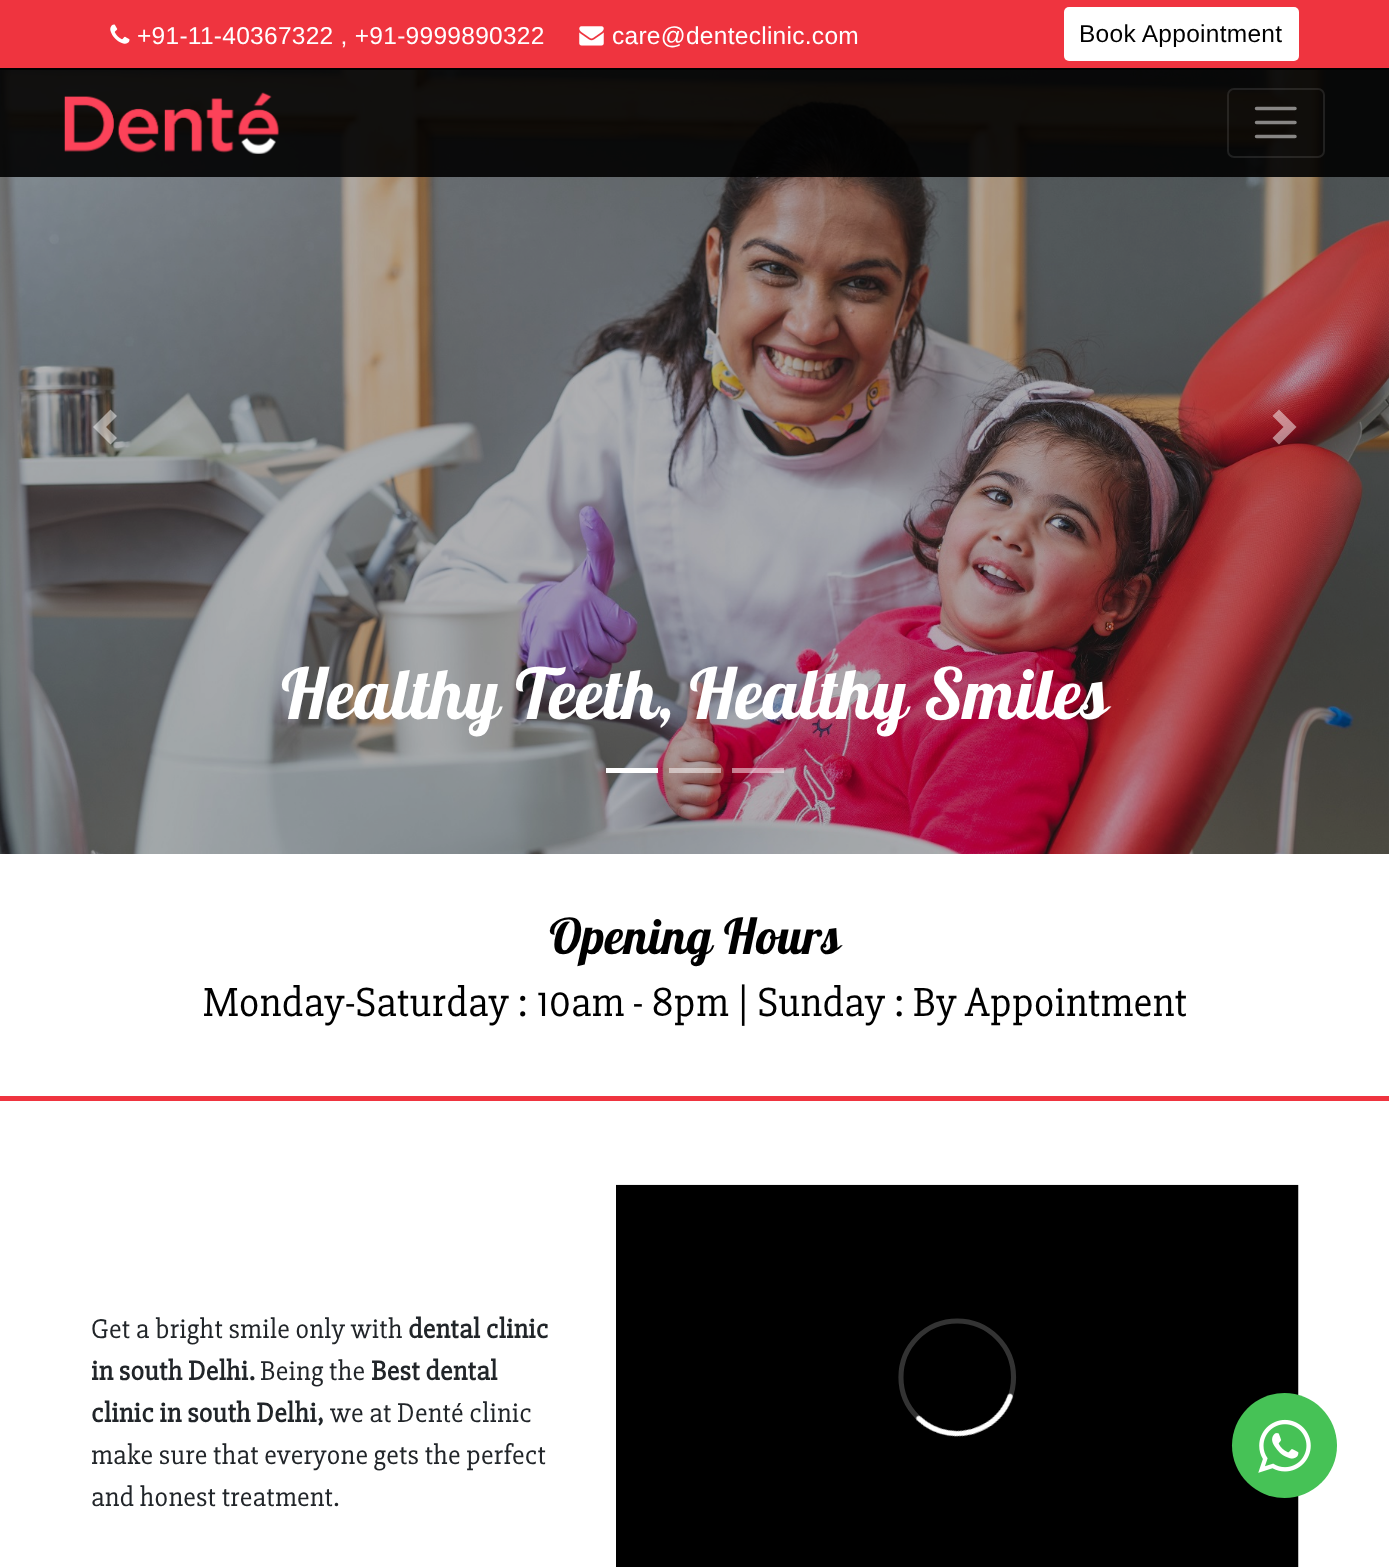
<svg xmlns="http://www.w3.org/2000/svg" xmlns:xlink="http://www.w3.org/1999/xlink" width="1389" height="1567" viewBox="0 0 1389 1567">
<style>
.cls-1{font:24.5px Liberation Sans;letter-spacing:0.28px;fill:#ffffff}
.cls-2{font:24.5px Liberation Sans;letter-spacing:0.28px;fill:#000000}
.cls-3{font:70px Lobster;letter-spacing:0.28px;fill:#ffffff}
.cls-4{font:49px Lobster;letter-spacing:0.28px;fill:#000000}
.cls-5{font:42px 'Slabo 27px';letter-spacing:0.28px;fill:#000000}
.cls-6{font:28px 'Slabo 27px';letter-spacing:0.28px;fill:#212529}
.cls-7{font:bold 28px 'Slabo 27px';letter-spacing:0.28px;fill:#212529}
</style>
<rect width="100%" height="100%" fill="#ffffff"/>
<rect fill="#ef343f" x="0" y="0" width="1389" height="68"/>
<rect fill="#000000" x="0" y="68" width="1389" height="2"/>
<image xlink:href="image0.png" x="110" y="24" width="20" height="20"/>
<image xlink:href="image1.png" x="579" y="26" width="25" height="20"/>
<rect fill="#ffffff" x="1064" y="7" width="235" height="54" rx="5"/>
<image xlink:href="image3.png" x="0" y="70" width="1389" height="784"/>
<rect fill="#000000" fill-opacity="0.9" x="0" y="70" width="1389" height="107"/>
<image xlink:href="image2.png" x="64" y="92" width="215" height="62"/>
<rect fill="none" stroke="#ffffff" stroke-opacity="0.1" stroke-width="2" x="1228" y="89" width="96" height="68" rx="6"/>
<path fill="none" stroke="#ffffff" stroke-opacity="0.5" stroke-width="3.5" stroke-linecap="round" d="M1256.5 108.5H1295M1256.5 122.5H1295M1256.5 136.5H1295"/>
<path fill="#ffffff" fill-opacity="0.5" d="M110.5 409.5L93 427L110.5 444.5L117 438L106 427L117 416Z"/>
<path fill="#ffffff" fill-opacity="0.5" d="M1279 409.5L1272.5 416L1283.5 427L1272.5 438L1279 444.5L1296.5 427Z"/>
<rect fill="#ffffff" x="606" y="768" width="52" height="5"/>
<rect fill="#ffffff" fill-opacity="0.5" x="669" y="768" width="52" height="5"/>
<rect fill="#ffffff" fill-opacity="0.5" x="732" y="768" width="52" height="5"/>
<rect fill="#ef343f" x="0" y="1096" width="1389" height="5"/>
<image xlink:href="image4.png" x="616" y="1184" width="683" height="383"/>
<circle fill="#46c256" cx="1284.5" cy="1445.5" r="52.5"/>
<image xlink:href="image5.png" x="1258" y="1419" width="53" height="54"/>
<text class="cls-1" x="137" y="44">+91-11-40367322 , +91-9999890322</text>
<text class="cls-1" x="612" y="44">care@denteclinic.com</text>
<text class="cls-2" x="1079" y="42">Book Appointment</text>
<text class="cls-3" x="281" y="719">Healthy Teeth, Healthy Smiles</text>
<text class="cls-4" x="549" y="954">Opening Hours</text>
<text class="cls-5" x="203" y="1016">Monday-Saturday : 10am - 8pm | Sunday : By Appointment</text>
<text class="cls-6" x="91" y="1338">Get a bright smile only with</text>
<text class="cls-7" x="408" y="1338">dental clinic</text>
<text class="cls-7" x="91" y="1380">in south Delhi.</text>
<text class="cls-6" x="260" y="1380">Being the</text>
<text class="cls-7" x="371" y="1380">Best dental</text>
<text class="cls-7" x="91" y="1422">clinic in south Delhi,</text>
<text class="cls-6" x="330" y="1422">we at Denté clinic</text>
<text class="cls-6"><tspan x="91" y="1464">make sure that everyone gets the perfect</tspan><tspan x="91" y="1506">and honest treatment.</tspan></text>
</svg>
